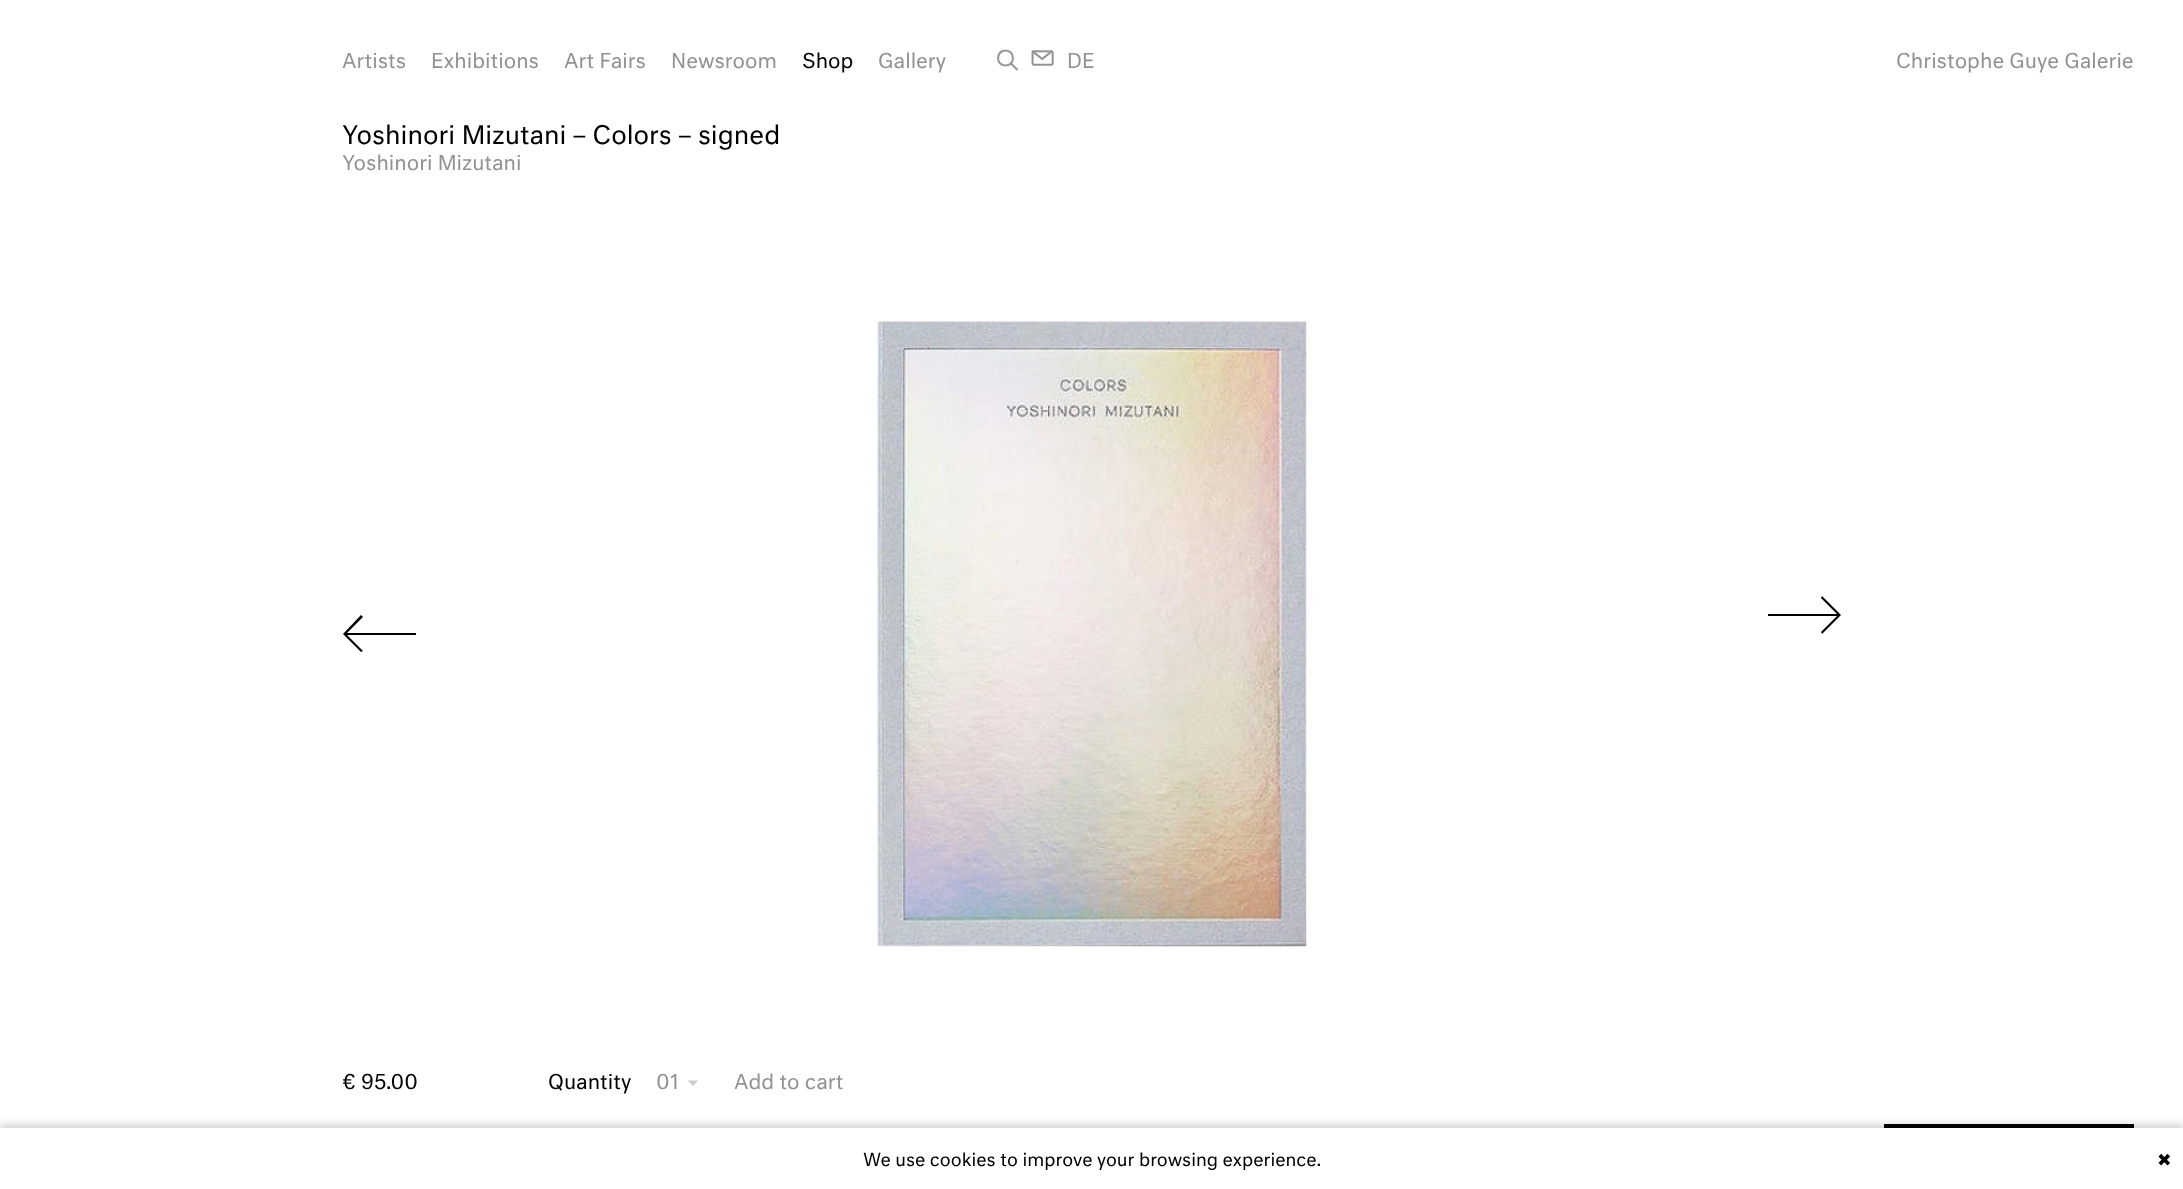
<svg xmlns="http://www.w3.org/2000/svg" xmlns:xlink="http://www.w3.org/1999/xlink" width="2183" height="1189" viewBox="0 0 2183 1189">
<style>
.cls-1{font:20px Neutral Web;fill:#929292}
.cls-2{font:20px Neutral Web;fill:#000000}
.cls-3{font:25px Neutral Web;fill:#000000}
.cls-4{font:17.5px Neutral Web;fill:#000000}
.cls-5{font:17.5px DejaVu Sans;fill:#000000}
</style>
<defs>
<clipPath id="clip1"><rect x="343" y="0" width="1500" height="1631"/></clipPath>
</defs>
<rect width="100%" height="100%" fill="#ffffff"/>
<path fill="none" stroke="#999999" stroke-width="2.1" stroke-linejoin="round" d="M1013 58C1013 68 998 68 998 58C998 48 1013 48 1013 58Z"/>
<path fill="none" stroke="#999999" stroke-width="2.1" stroke-linecap="round" stroke-linejoin="round" d="M1011.5 64L1017 69.5"/>
<image xlink:href="image0.png" x="1031" y="50" width="23" height="16"/>
<path fill="#000000" fill-rule="evenodd" d="M347 635H416V633H347L363 617L361 615L343 634L361 652L363 651Z"/>
<image xlink:href="image1.png" x="877" y="321" width="430" height="626"/>
<path fill="#000000" fill-rule="evenodd" d="M1837 614H1768V616H1837L1821 632L1822 634L1841 615L1822 596L1821 598Z"/>
<path fill="#cccccc" d="M698 1080.5L693 1086V1080.5ZM693 1086L687.5 1080.5H693Z"/>
<rect fill="#000000" x="1884" y="1124" width="250" height="4"/>
<rect fill="#000000" fill-opacity="0.2" filter="blur(5px)" x="0" y="1125" width="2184" height="63"/>
<rect fill="#ffffff" x="0" y="1128" width="2183" height="61"/>
<text class="cls-1" x="342" y="68">Artists</text>
<text class="cls-1" x="431" y="68">Exhibitions</text>
<text class="cls-1" x="564" y="68">Art Fairs</text>
<text class="cls-1" x="671" y="68">Newsroom</text>
<text class="cls-2" x="802" y="68">Shop</text>
<text class="cls-1" x="878" y="68">Gallery</text>
<text class="cls-1" x="1067" y="68">DE</text>
<text class="cls-3" x="342" y="144">Yoshinori Mizutani – Colors – signed</text>
<text class="cls-1" x="342" y="170">Yoshinori Mizutani</text>
<g clip-path="url(#clip1)">
<text class="cls-2" x="342" y="1089">€ 95.00</text>
</g>
<text class="cls-2" x="548" y="1089">Quantity</text>
<text class="cls-1" x="656" y="1089">01</text>
<text class="cls-1" x="734" y="1089">Add to cart</text>
<text class="cls-1" x="1896" y="68">Christophe Guye Galerie</text>
<text class="cls-4" x="863" y="1166">We use cookies to improve your browsing experience.</text>
<text class="cls-5" x="2157" y="1166">✖</text>
</svg>
